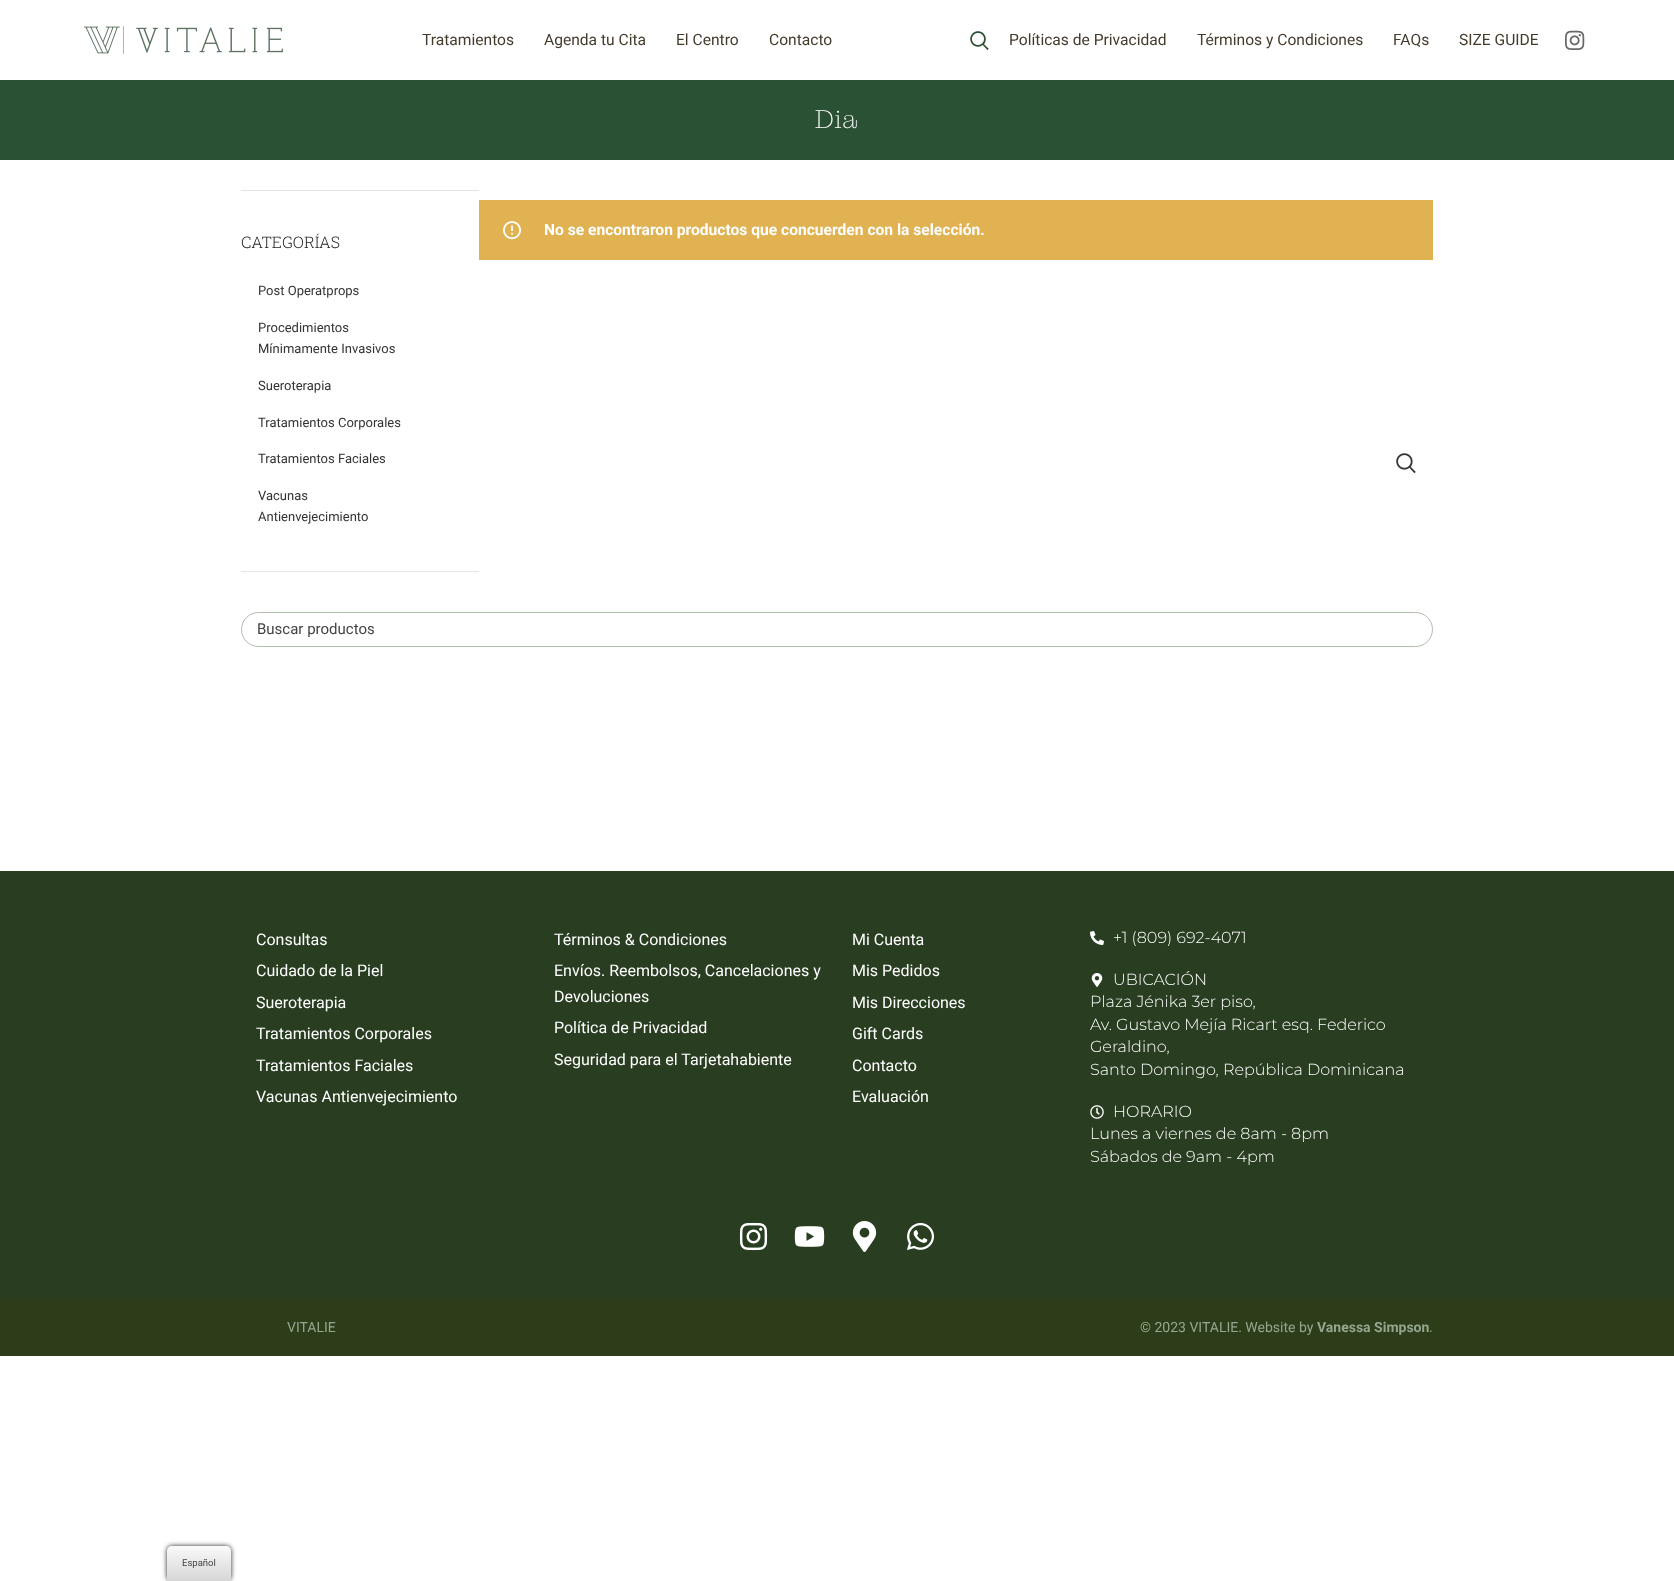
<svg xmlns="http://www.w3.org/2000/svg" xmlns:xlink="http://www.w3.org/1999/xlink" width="1674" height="1581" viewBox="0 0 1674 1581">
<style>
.cls-1{font:15.6px Roboto;fill:#453b2c}
.cls-2{font:200 26px Montagu Slab;letter-spacing:0.5px;fill:#ffffff}
.cls-3{font:bold 15.6px Roboto;fill:#ffffff}
.cls-4{font:300 16px Roboto Slab;fill:#242424}
.cls-5{font:13px Roboto;fill:#333333}
.cls-6{font:15px Roboto;fill:#444444}
.cls-7{font:16px Roboto;fill:#ffffff}
.cls-8{font:300 16px Montserrat;fill:#ffffff}
.cls-9{font:14px Roboto;fill:#94a690}
.cls-10{font:bold 14px Roboto;fill:#94a690}
.cls-11{font:9.5px Roboto;fill:#444444}
</style>
<defs>
<linearGradient id="g1" gradientUnits="userSpaceOnUse" x1="199" y1="1581" x2="199" y2="1546"><stop offset="0" stop-color="#d6d6d6"/><stop offset="1" stop-color="#fafafa"/></linearGradient>
</defs>
<rect width="100%" height="100%" fill="#ffffff"/>
<image xlink:href="image0.png" x="84" y="26" width="199" height="28"/>
<image xlink:href="image1.png" x="970" y="31" width="19" height="20"/>
<image xlink:href="image2.png" x="1565" y="30" width="20" height="20"/>
<rect fill="#2b5134" x="0" y="80" width="1674" height="80"/>
<rect fill="#e0b252" x="479" y="200" width="954" height="60"/>
<image xlink:href="image3.png" x="503" y="221" width="18" height="19"/>
<rect fill="#e4e4e4" x="241" y="190" width="238" height="1"/>
<rect fill="#e4e4e4" x="241" y="571" width="238" height="1"/>
<image xlink:href="image4.png" x="1396" y="453" width="20" height="21"/>
<rect fill="none" stroke="#b1bdae" x="241.5" y="612.5" width="1191" height="34" rx="17"/>
<rect fill="#293d21" x="0" y="871" width="1674" height="428"/>
<image xlink:href="image5.png" x="1090" y="931" width="14" height="14"/>
<image xlink:href="image6.png" x="1091" y="973" width="12" height="14"/>
<image xlink:href="image7.png" x="1090" y="1105" width="14" height="14"/>
<image xlink:href="image8.png" x="739" y="1222" width="29" height="29"/>
<image xlink:href="image9.png" x="794" y="1226" width="31" height="21"/>
<image xlink:href="image10.png" x="852" y="1221" width="25" height="31"/>
<image xlink:href="image11.png" x="907" y="1222" width="28" height="28"/>
<rect fill="#2d3d19" x="0" y="1299" width="1674" height="57"/>
<rect fill="#212121" filter="blur(2.5px)" x="167" y="1546" width="64" height="35" rx="5"/>
<path fill="url(#g1)" d="M172 1546H226C229 1546 231 1548 231 1551V1581H167V1551C167 1548 169 1546 172 1546Z"/>
<text class="cls-1" x="422" y="45">Tratamientos</text>
<text class="cls-1" x="544" y="45">Agenda tu Cita</text>
<text class="cls-1" x="676" y="45">El Centro</text>
<text class="cls-1" x="769" y="45">Contacto</text>
<text class="cls-1" x="1009" y="45">Políticas de Privacidad</text>
<text class="cls-1" x="1197" y="45">Términos y Condiciones</text>
<text class="cls-1" x="1393" y="45">FAQs</text>
<text class="cls-1" x="1459" y="45">SIZE GUIDE</text>
<text class="cls-2" x="815" y="128">Dia</text>
<text class="cls-3" x="544" y="235">No se encontraron productos que concuerden con la selección.</text>
<text class="cls-4" x="241" y="248">CATEGORÍAS</text>
<text class="cls-5" x="258" y="295">Post Operatprops</text>
<text class="cls-5"><tspan x="258" y="332">Procedimientos</tspan><tspan x="258" y="353">Mínimamente Invasivos</tspan></text>
<text class="cls-5" x="258" y="390">Sueroterapia</text>
<text class="cls-5" x="258" y="427">Tratamientos Corporales</text>
<text class="cls-5" x="258" y="463">Tratamientos Faciales</text>
<text class="cls-5"><tspan x="258" y="500">Vacunas</tspan><tspan x="258" y="521">Antienvejecimiento</tspan></text>
<text class="cls-6" x="257" y="634">Buscar productos</text>
<text class="cls-7"><tspan x="256" y="945">Consultas</tspan><tspan x="256" y="976">Cuidado de la Piel</tspan></text>
<text class="cls-7"><tspan x="256" y="1008">Sueroterapia</tspan><tspan x="256" y="1039">Tratamientos Corporales</tspan></text>
<text class="cls-7"><tspan x="256" y="1071">Tratamientos Faciales</tspan><tspan x="256" y="1102">Vacunas Antienvejecimiento</tspan></text>
<text class="cls-7"><tspan x="554" y="945">Términos &amp; Condiciones</tspan><tspan x="554" y="976">Envíos. Reembolsos, Cancelaciones y</tspan><tspan x="554" y="1002">Devoluciones</tspan><tspan x="554" y="1033">Política de Privacidad</tspan></text>
<text class="cls-7" x="554" y="1065">Seguridad para el Tarjetahabiente</text>
<text class="cls-7"><tspan x="852" y="945">Mi Cuenta</tspan><tspan x="852" y="976">Mis Pedidos</tspan></text>
<text class="cls-7"><tspan x="852" y="1008">Mis Direcciones</tspan><tspan x="852" y="1039">Gift Cards</tspan></text>
<text class="cls-7"><tspan x="852" y="1071">Contacto</tspan><tspan x="852" y="1102">Evaluación</tspan></text>
<text class="cls-8" x="1113" y="943">+1 (809) 692-4071</text>
<text class="cls-8" x="1113" y="985">UBICACIÓN</text>
<text class="cls-8"><tspan x="1090" y="1007">Plaza Jénika 3er piso,</tspan><tspan x="1090" y="1030">Av. Gustavo Mejía Ricart esq. Federico</tspan><tspan x="1090" y="1052">Geraldino,</tspan><tspan x="1090" y="1075">Santo Domingo, República Dominicana</tspan></text>
<text class="cls-8" x="1113" y="1117">HORARIO</text>
<text class="cls-8"><tspan x="1090" y="1139">Lunes a viernes de 8am - 8pm</tspan><tspan x="1090" y="1162">Sábados de 9am - 4pm</tspan></text>
<text class="cls-9" x="287" y="1332">VITALIE</text>
<text class="cls-9" x="1140" y="1332">© 2023 VITALIE. Website by</text>
<text class="cls-10" x="1317" y="1332">Vanessa Simpson</text>
<text class="cls-9" x="1429" y="1332">.</text>
<text class="cls-11" x="182" y="1566">Español</text>
</svg>
